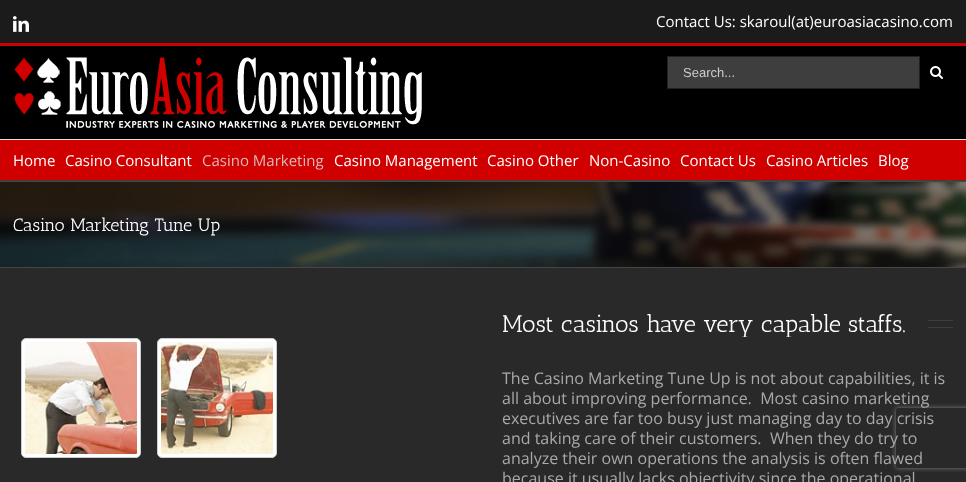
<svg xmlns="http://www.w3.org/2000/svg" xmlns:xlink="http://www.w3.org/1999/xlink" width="966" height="482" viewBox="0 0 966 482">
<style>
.cls-1{font:15px Open Sans;fill:#ffffff}
.cls-2{font:13px Liberation Sans;fill:#cccccc}
.cls-3{font:15px Open Sans;fill:#ddbaba}
.cls-4{font:18px Antic Slab;fill:#ffffff}
.cls-5{font:24px Antic Slab;fill:#ffffff}
.cls-6{font:16px Open Sans;fill:#aaa9a9}
</style>
<defs>
<clipPath id="clip1"><path d="M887 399H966V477H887ZM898 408H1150C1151 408 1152 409 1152 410V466C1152 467 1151 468 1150 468H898C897 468 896 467 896 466V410C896 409 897 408 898 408Z" clip-rule="evenodd"/></clipPath>
<clipPath id="clip2"><rect x="502" y="310" width="451" height="27"/></clipPath>
</defs>
<rect width="100%" height="100%" fill="#29292a"/>
<rect fill="#1b1b1b" x="0" y="0" width="966" height="43"/>
<rect fill="#d00000" x="0" y="43" width="966" height="3"/>
<image xlink:href="image0.png" x="13" y="16" width="16" height="16"/>
<rect fill="#000000" x="0" y="46" width="966" height="93"/>
<rect fill="#e1e1e1" x="0" y="139" width="966" height="1"/>
<image xlink:href="image1.png" x="13" y="57" width="409" height="71"/>
<rect fill="#3e3e3e" stroke="#212122" x="667.5" y="56.5" width="252" height="32"/>
<image xlink:href="image2.png" x="930" y="66" width="13" height="13"/>
<rect fill="#d00000" x="0" y="140" width="966" height="40"/>
<rect fill="#3e3e3e" x="0" y="180" width="966" height="1"/>
<image xlink:href="image3.png" x="0" y="182" width="966" height="85"/>
<rect fill="#464646" x="0" y="181" width="966" height="1"/>
<rect fill="#464646" x="0" y="267" width="966" height="1"/>
<rect fill="#3e3e3e" x="928" y="320" width="25" height="1"/>
<rect fill="#3e3e3e" x="928" y="327" width="25" height="1"/>
<rect fill="#ffffff" stroke="#cccccc" x="21.5" y="338.5" width="119" height="119" rx="4.5"/>
<image xlink:href="image4.png" x="25" y="342" width="112" height="112"/>
<rect fill="#ffffff" stroke="#cccccc" x="157.5" y="338.5" width="119" height="119" rx="4.5"/>
<image xlink:href="image5.png" x="161" y="342" width="112" height="112"/>
<g clip-path="url(#clip1)">
<rect fill="#808080" filter="blur(2.5px)" x="896" y="408" width="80" height="60" rx="2"/>
</g>
<text class="cls-1" x="656" y="27">Contact Us: skaroul(at)euroasiacasino.com</text>
<text class="cls-2" x="683" y="77">Search...</text>
<text class="cls-1" x="13" y="166">Home</text>
<text class="cls-1" x="65" y="166">Casino Consultant</text>
<text class="cls-3" x="202" y="166">Casino Marketing</text>
<text class="cls-1" x="334" y="166">Casino Management</text>
<text class="cls-1" x="487" y="166">Casino Other</text>
<text class="cls-1" x="589" y="166">Non-Casino</text>
<text class="cls-1" x="680" y="166">Contact Us</text>
<text class="cls-1" x="766" y="166">Casino Articles</text>
<text class="cls-1" x="878" y="166">Blog</text>
<text class="cls-4" x="13" y="231">Casino Marketing Tune Up</text>
<g clip-path="url(#clip2)">
<text class="cls-5" x="502" y="332">Most casinos have very capable staffs.</text>
</g>
<text class="cls-6" xml:space="preserve"><tspan x="502" y="384">The Casino Marketing Tune Up is not about capabilities, it is</tspan><tspan x="502" y="404">all about improving performance.  Most casino marketing</tspan><tspan x="502" y="424">executives are far too busy just managing day to day crisis</tspan><tspan x="502" y="444">and taking care of their customers.  When they do try to</tspan><tspan x="502" y="464">analyze their own operations the analysis is often flawed</tspan><tspan x="502" y="484">because it usually lacks objectivity since the operational</tspan></text>
</svg>
